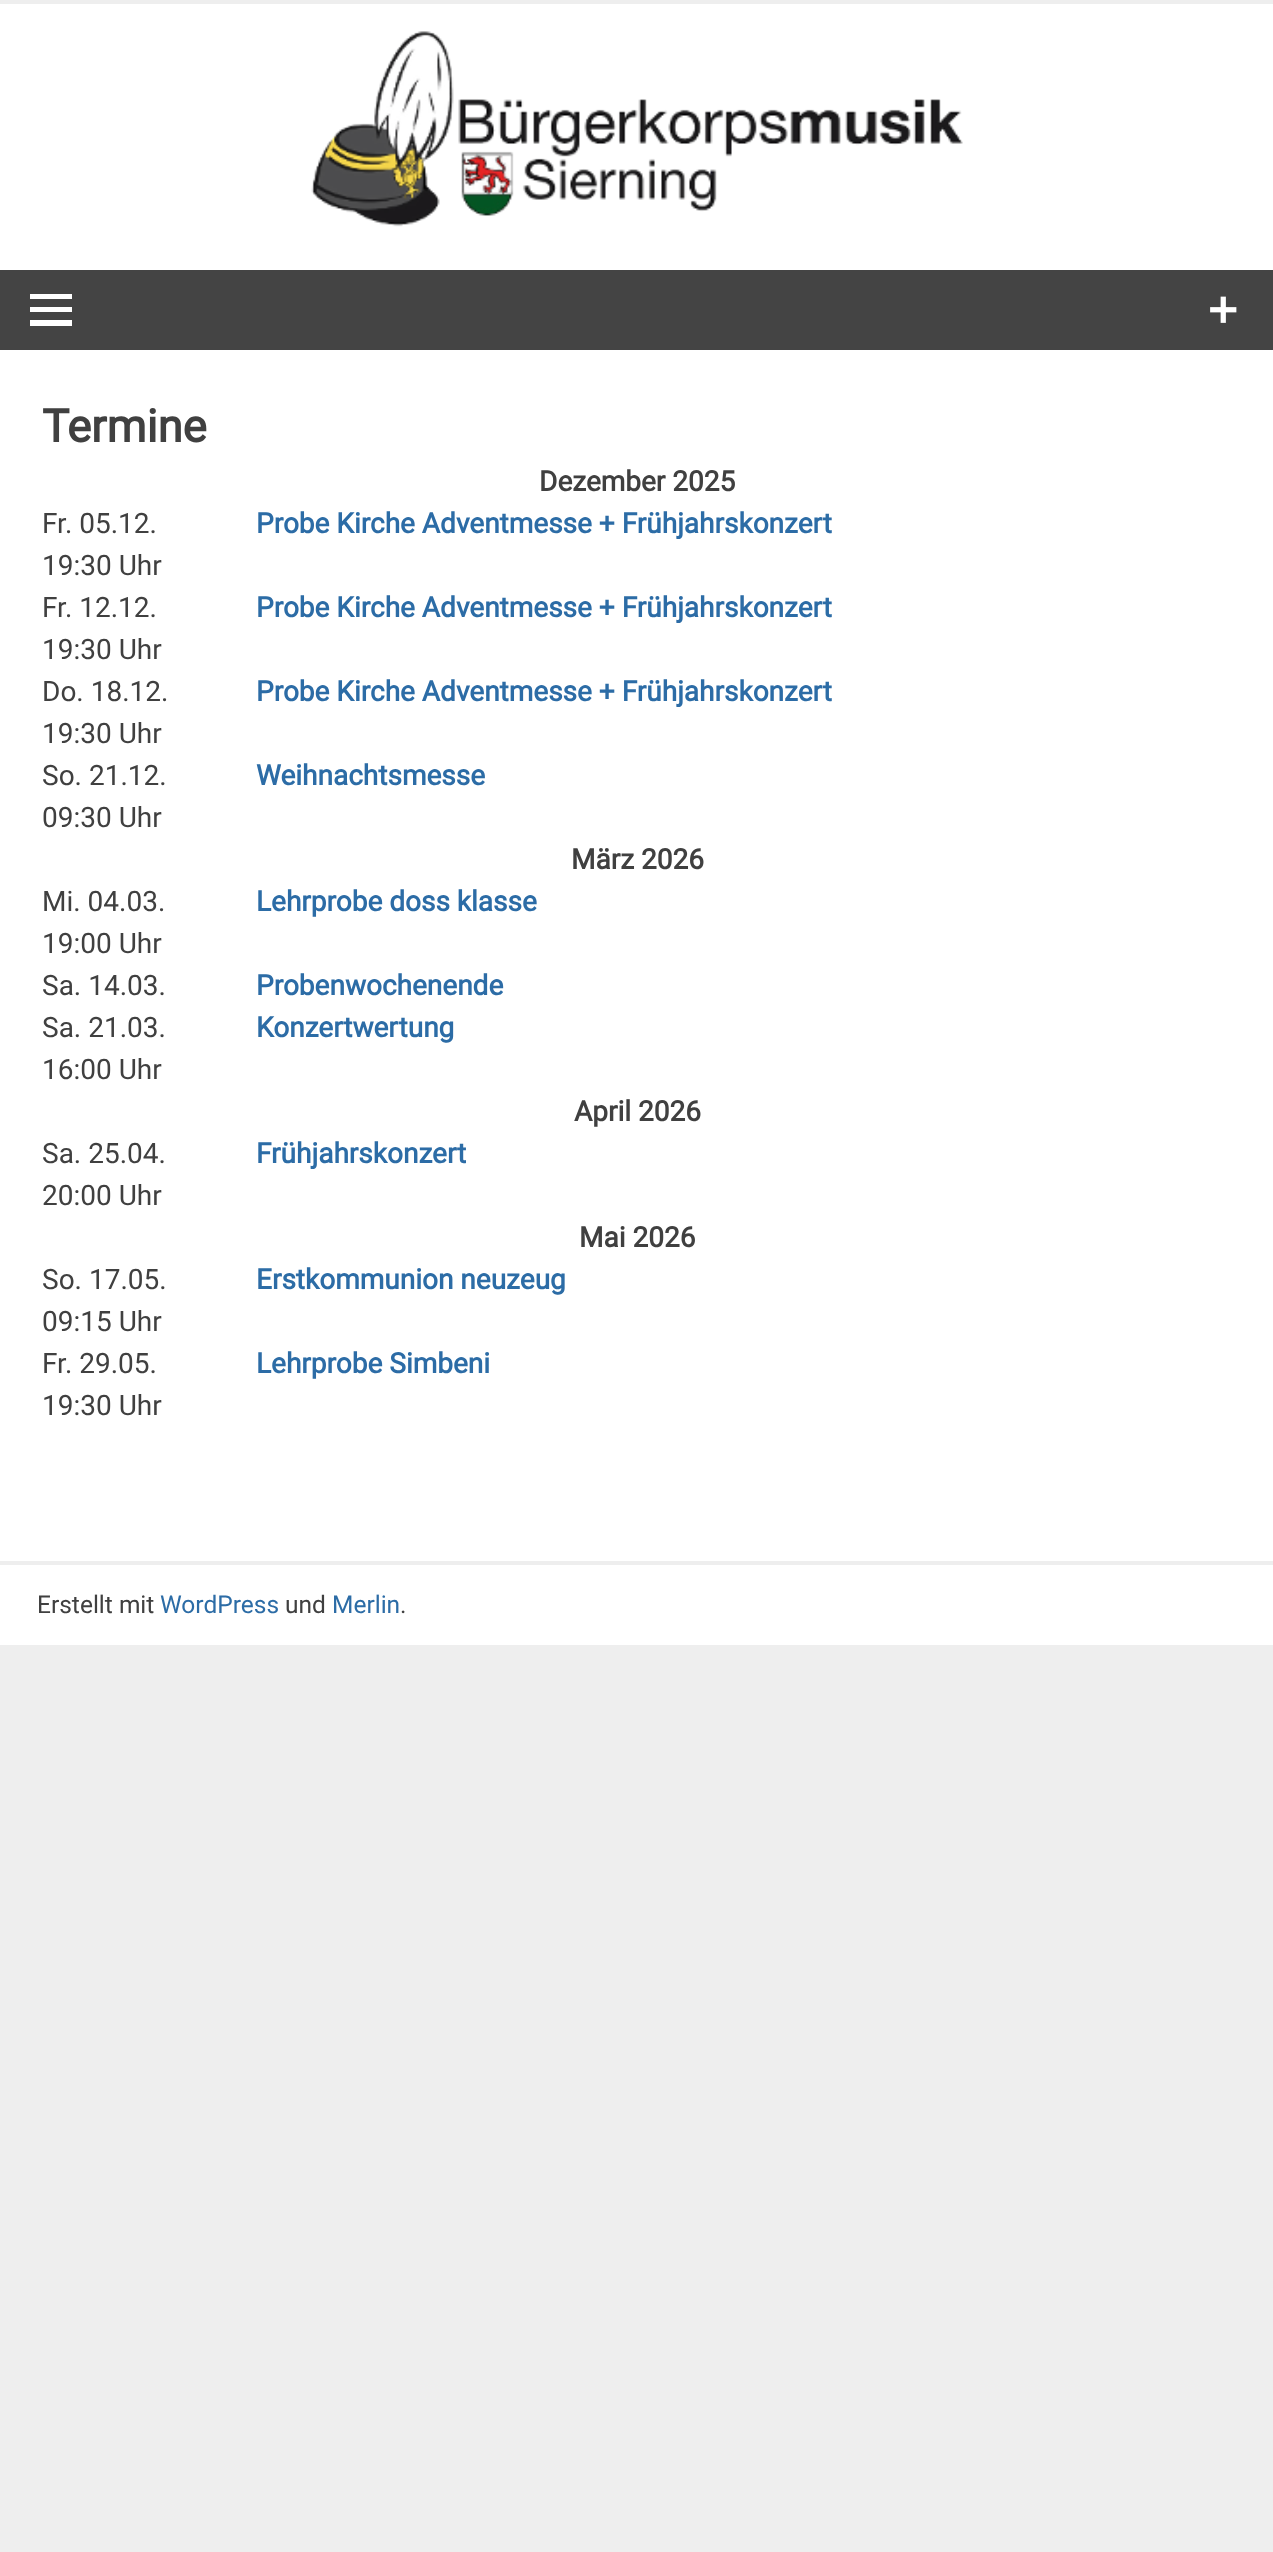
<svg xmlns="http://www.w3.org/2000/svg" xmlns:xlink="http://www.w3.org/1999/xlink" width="1273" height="2552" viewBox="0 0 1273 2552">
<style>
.cls-1{font:bold 45.5px Roboto;fill:#404040}
.cls-2{font:bold 28px Roboto;fill:#404040}
.cls-3{font:28px Roboto;fill:#404040}
.cls-4{font:bold 28px Roboto;fill:#2c6ca6}
.cls-5{font:24.5px Roboto;fill:#404040}
.cls-6{font:24.5px Roboto;fill:#2c6ca6}
</style>
<rect width="100%" height="100%" fill="#eeeeee"/>
<rect fill="#ffffff" x="0" y="4" width="1273" height="1641"/>
<image xlink:href="image0.png" x="311" y="31" width="652" height="196"/>
<rect fill="#444444" x="0" y="270" width="1273" height="80"/>
<image xlink:href="image1.png" x="1210" y="296" width="27" height="27"/>
<path fill="#ffffff" d="M30 326V320H72V326ZM30 294H72V299H30ZM30 312V307H72V312Z"/>
<rect fill="#eeeeee" x="0" y="1561" width="1273" height="4"/>
<text class="cls-1" x="42" y="442">Termine</text>
<text class="cls-2" x="539" y="491">Dezember 2025</text>
<text class="cls-3"><tspan x="42" y="533">Fr. 05.12.</tspan><tspan x="42" y="575">19:30 Uhr</tspan></text>
<text class="cls-4" x="256" y="533">Probe Kirche Adventmesse + Frühjahrskonzert</text>
<text class="cls-3"><tspan x="42" y="617">Fr. 12.12.</tspan><tspan x="42" y="659">19:30 Uhr</tspan></text>
<text class="cls-4" x="256" y="617">Probe Kirche Adventmesse + Frühjahrskonzert</text>
<text class="cls-3"><tspan x="42" y="701">Do. 18.12.</tspan><tspan x="42" y="743">19:30 Uhr</tspan></text>
<text class="cls-4" x="256" y="701">Probe Kirche Adventmesse + Frühjahrskonzert</text>
<text class="cls-3"><tspan x="42" y="785">So. 21.12.</tspan><tspan x="42" y="827">09:30 Uhr</tspan></text>
<text class="cls-4" x="256" y="785">Weihnachtsmesse</text>
<text class="cls-2" x="571" y="869">März 2026</text>
<text class="cls-3"><tspan x="42" y="911">Mi. 04.03.</tspan><tspan x="42" y="953">19:00 Uhr</tspan></text>
<text class="cls-4" x="256" y="911">Lehrprobe doss klasse</text>
<text class="cls-3" x="42" y="995">Sa. 14.03.</text>
<text class="cls-4" x="256" y="995">Probenwochenende</text>
<text class="cls-3"><tspan x="42" y="1037">Sa. 21.03.</tspan><tspan x="42" y="1079">16:00 Uhr</tspan></text>
<text class="cls-4" x="256" y="1037">Konzertwertung</text>
<text class="cls-2" x="574" y="1121">April 2026</text>
<text class="cls-3"><tspan x="42" y="1163">Sa. 25.04.</tspan><tspan x="42" y="1205">20:00 Uhr</tspan></text>
<text class="cls-4" x="256" y="1163">Frühjahrskonzert</text>
<text class="cls-2" x="579" y="1247">Mai 2026</text>
<text class="cls-3"><tspan x="42" y="1289">So. 17.05.</tspan><tspan x="42" y="1331">09:15 Uhr</tspan></text>
<text class="cls-4" x="256" y="1289">Erstkommunion neuzeug</text>
<text class="cls-3"><tspan x="42" y="1373">Fr. 29.05.</tspan><tspan x="42" y="1415">19:30 Uhr</tspan></text>
<text class="cls-4" x="256" y="1373">Lehrprobe Simbeni</text>
<text class="cls-5" x="37" y="1613">Erstellt mit</text>
<text class="cls-6" x="160" y="1613">WordPress</text>
<text class="cls-5" x="285" y="1613">und</text>
<text class="cls-6" x="332" y="1613">Merlin</text>
<text class="cls-5" x="400" y="1613">.</text>
</svg>
